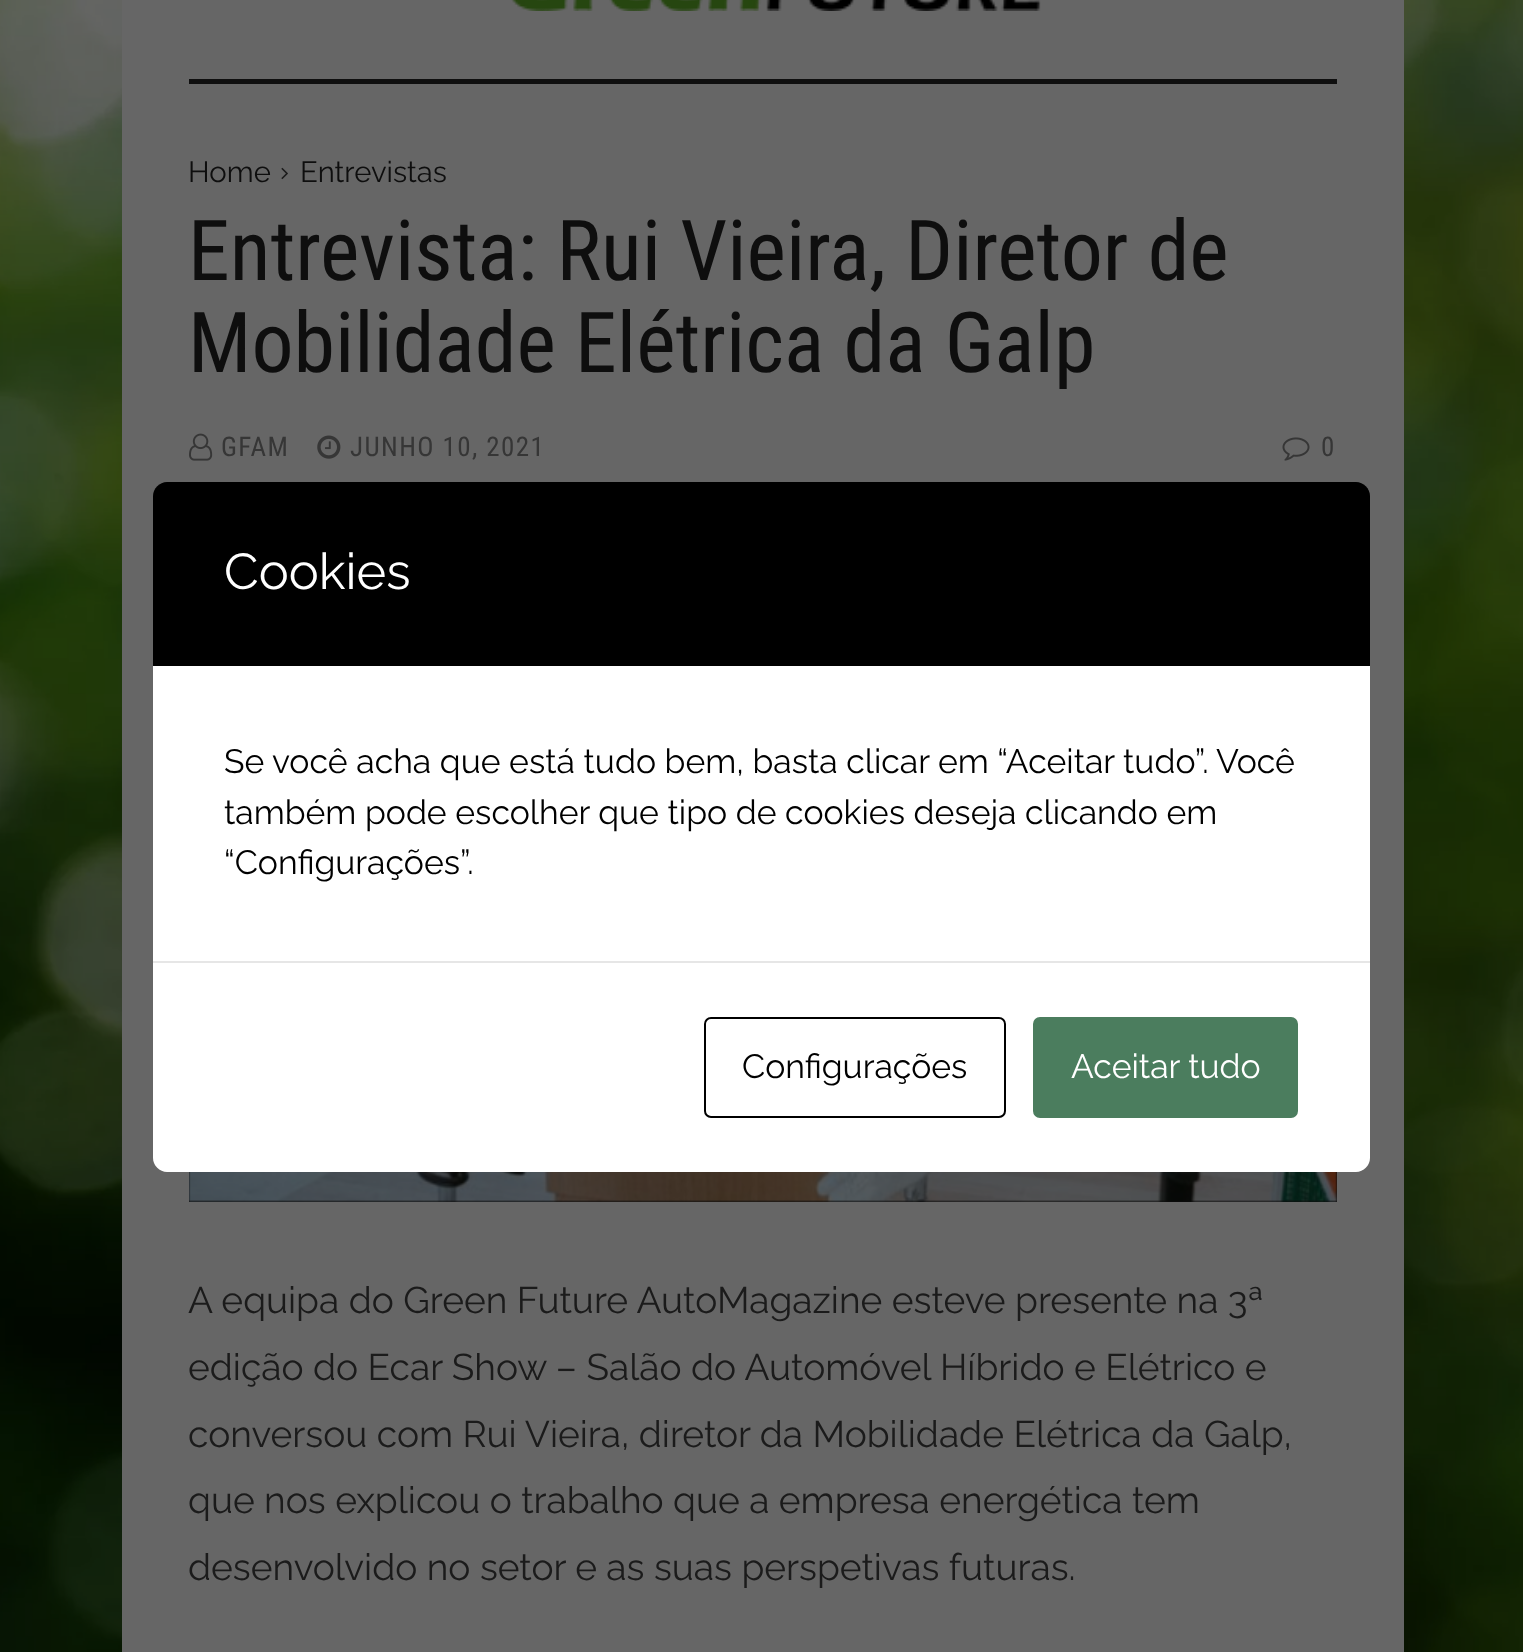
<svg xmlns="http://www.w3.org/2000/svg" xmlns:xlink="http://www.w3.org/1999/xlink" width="1523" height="1652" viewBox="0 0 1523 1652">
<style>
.cls-1{font:29.25px Raleway;fill:#0e0e0e}
.cls-2{font:84px Roboto Condensed;fill:#0e0e0e}
.cls-3{font:27px Roboto Condensed;letter-spacing:1.4px;fill:#363636}
.cls-4{font:37.1px Raleway;fill:#1b1b1b}
.cls-5{font:50.5px Raleway;fill:#ffffff}
.cls-6{font:33.75px Raleway;fill:#000000}
.cls-7{font:33.75px Raleway;fill:#ffffff}
</style>
<rect width="100%" height="100%" fill="#ffffff"/>
<image xlink:href="image0.png" x="0" y="0" width="1523" height="1652"/>
<rect fill="#666666" x="122" y="0" width="1282" height="1652"/>
<image xlink:href="image1.png" x="511" y="0" width="530" height="11"/>
<rect fill="#0f0f0f" x="189" y="79" width="1148" height="5"/>
<image xlink:href="image2.png" x="281" y="167" width="7" height="13"/>
<image xlink:href="image3.png" x="189" y="433" width="24" height="28"/>
<image xlink:href="image4.png" x="317" y="435" width="24" height="24"/>
<image xlink:href="image5.png" x="1282" y="437" width="28" height="24"/>
<rect fill="#0e0e0e" x="189" y="1172" width="1148" height="30"/>
<image xlink:href="image6.png" x="189" y="1172" width="1148" height="30"/>
<path fill="#000000" d="M167 482H1356C1363.5 482 1370 488.5 1370 496V666H153V496C153 488.5 159.5 482 167 482Z"/>
<rect fill="#ffffff" x="153" y="666" width="1217" height="295"/>
<path fill="#ffffff" d="M153 961H1370V1158C1370 1165.5 1363.5 1172 1356 1172H167C159.5 1172 153 1165.5 153 1158Z"/>
<rect fill="#e6e6e6" x="153" y="961" width="1217" height="2"/>
<rect fill="none" stroke="#000000" stroke-width="2" x="705" y="1018" width="300" height="99" rx="6"/>
<rect fill="#4b7d5e" stroke="#4b7d5e" stroke-width="2" x="1034" y="1018" width="263" height="99" rx="6"/>
<text class="cls-1" x="188" y="182">Home</text>
<text class="cls-1" x="300" y="182">Entrevistas</text>
<text class="cls-2"><tspan x="188" y="280">Entrevista: Rui Vieira, Diretor de</tspan><tspan x="188" y="372">Mobilidade Elétrica da Galp</tspan></text>
<text class="cls-3" x="221" y="456">GFAM</text>
<text class="cls-3" x="350" y="456">JUNHO 10, 2021</text>
<text class="cls-3" x="1321" y="456">0</text>
<text class="cls-4"><tspan x="188" y="1313">A equipa do Green Future AutoMagazine esteve presente na 3ª</tspan><tspan x="188" y="1380">edição do Ecar Show – Salão do Automóvel Híbrido e Elétrico e</tspan><tspan x="188" y="1447">conversou com Rui Vieira, diretor da Mobilidade Elétrica da Galp,</tspan><tspan x="188" y="1513">que nos explicou o trabalho que a empresa energética tem</tspan><tspan x="188" y="1580">desenvolvido no setor e as suas perspetivas futuras.</tspan></text>
<text class="cls-5" x="224" y="589">Cookies</text>
<text class="cls-6"><tspan x="224" y="773">Se você acha que está tudo bem, basta clicar em “Aceitar tudo”. Você</tspan><tspan x="224" y="824">também pode escolher que tipo de cookies deseja clicando em</tspan><tspan x="224" y="874">“Configurações”.</tspan></text>
<text class="cls-6" x="742" y="1078">Configurações</text>
<text class="cls-7" x="1071" y="1078">Aceitar tudo</text>
</svg>
